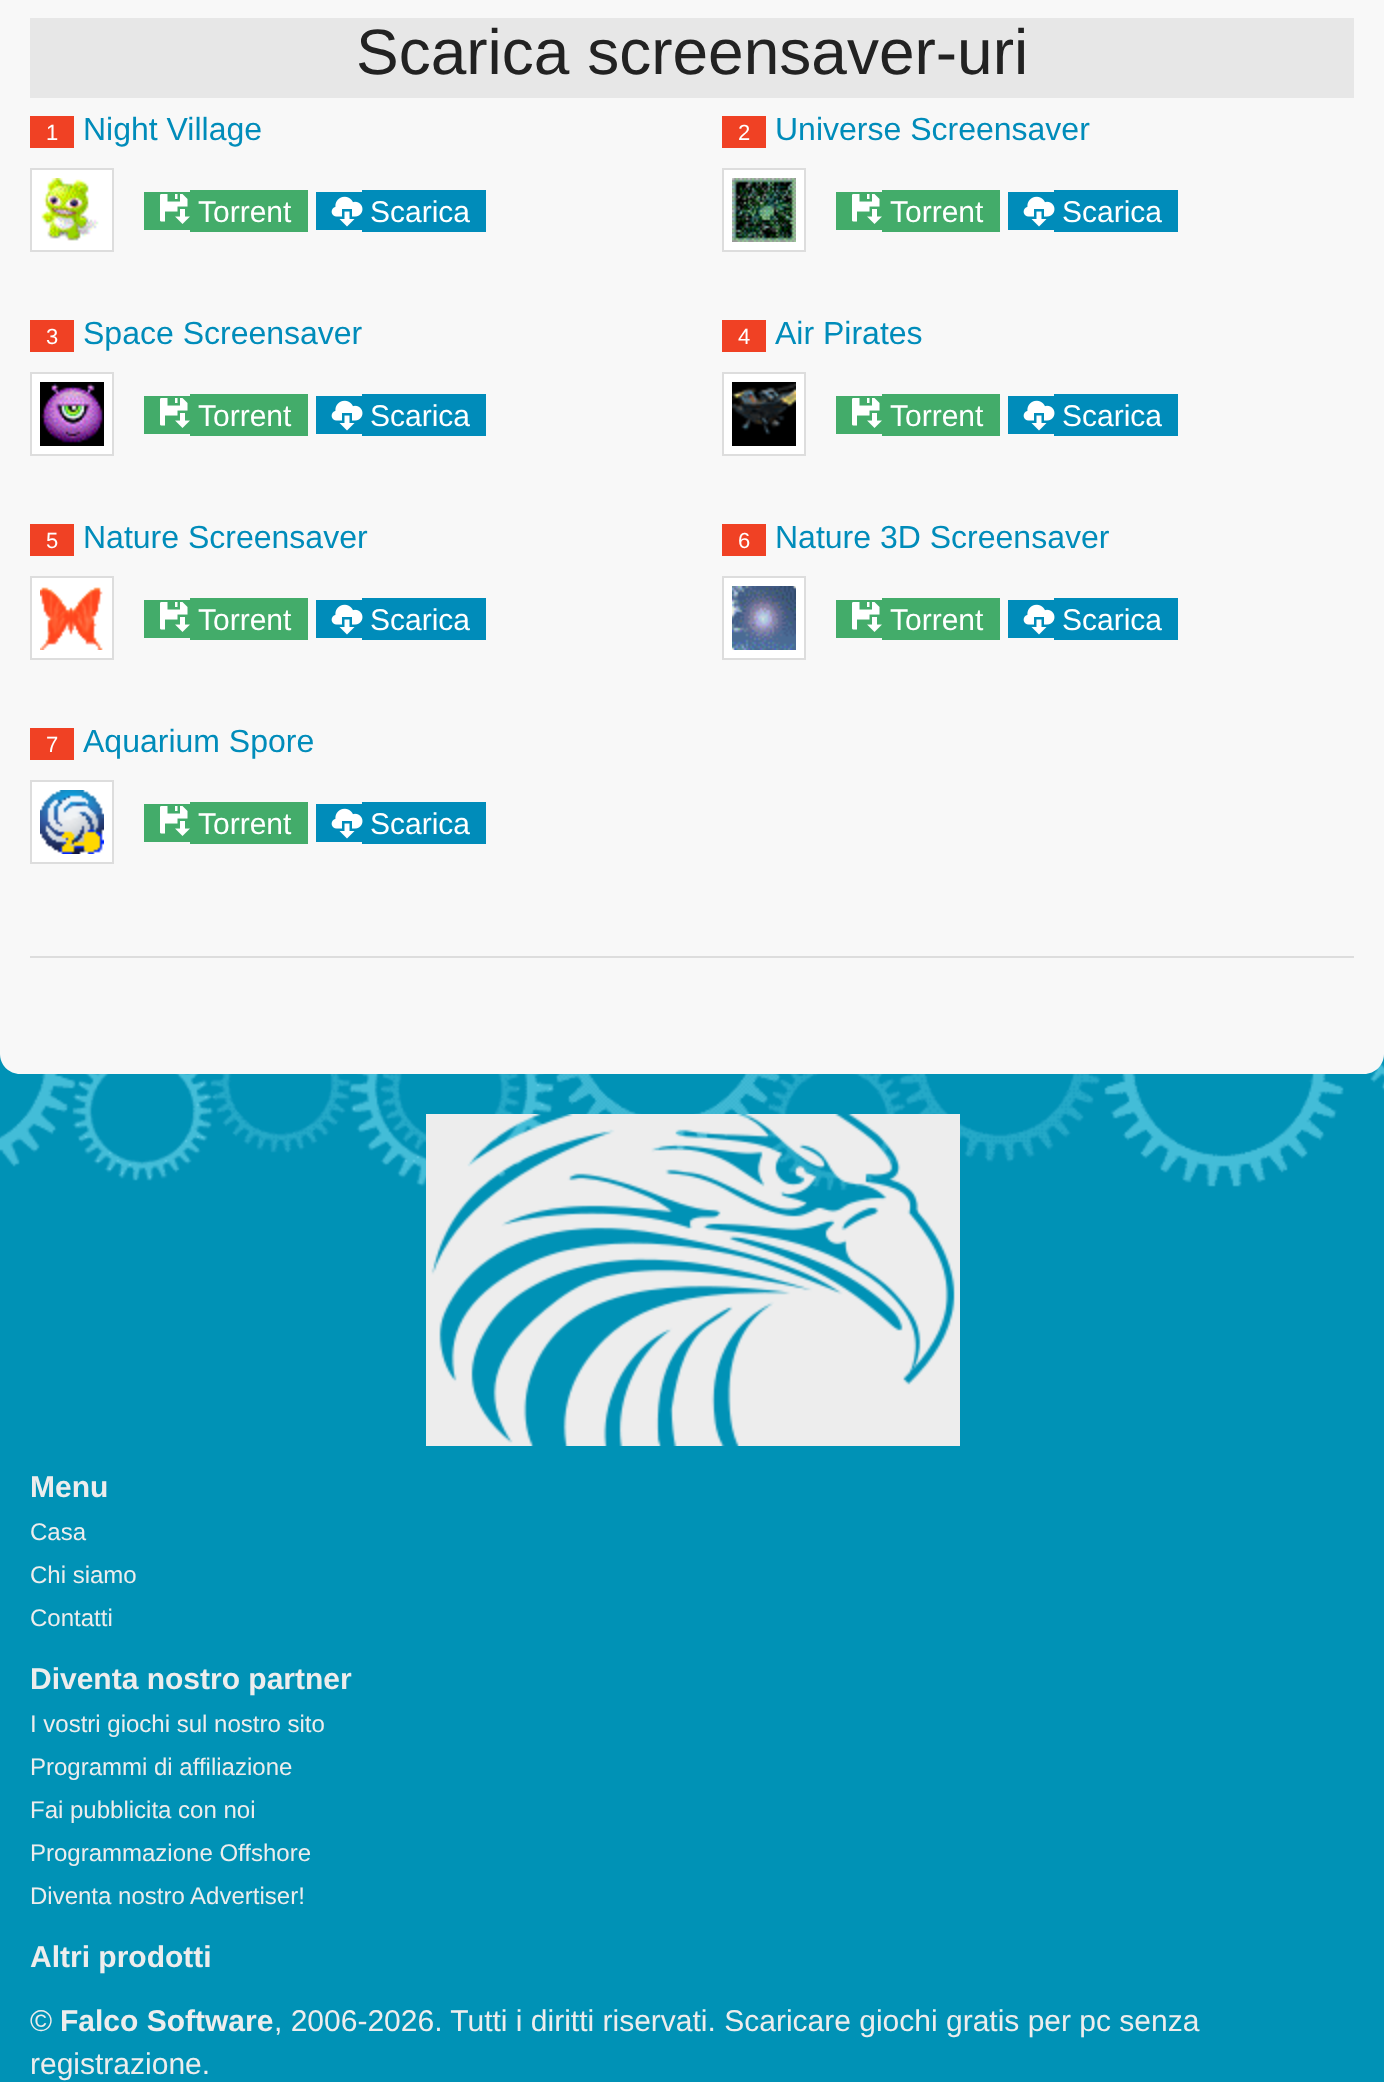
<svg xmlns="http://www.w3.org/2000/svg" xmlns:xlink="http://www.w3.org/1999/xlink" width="1384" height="2082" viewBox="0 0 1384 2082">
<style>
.cls-1{font:64px Liberation Sans;fill:#222222}
.cls-2{font:22px Liberation Sans;fill:#ffffff}
.cls-3{font:32px Liberation Sans;fill:#008cba}
.cls-4{font:30px Liberation Sans;fill:#ffffff}
.cls-5{font:bold 30px Liberation Sans;fill:#ededed}
.cls-6{font:24px Liberation Sans;fill:#ededed}
.cls-7{font:30px Liberation Sans;fill:#ededed}
</style>
<rect width="100%" height="100%" fill="#0092b6"/>
<image xlink:href="image9.png" x="0" y="1054" width="1384" height="137"/>
<path fill="#f8f8f8" d="M0-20H1384V1054C1384 1065 1375 1074 1364 1074H20C9 1074 0 1065 0 1054Z"/>
<rect fill="#e7e7e7" x="30" y="18" width="1324" height="80"/>
<rect fill="#f04124" x="30" y="116" width="44" height="32"/>
<rect fill="#ffffff" stroke="#dddddd" stroke-width="2" x="31" y="169" width="82" height="82"/>
<image xlink:href="image0.png" x="41" y="178" width="58" height="63"/>
<rect fill="#43ac6a" x="144" y="192" width="46" height="38"/>
<rect fill="#43ac6a" x="190" y="190" width="118" height="42"/>
<image xlink:href="image1.png" x="160" y="194" width="30" height="30"/>
<rect fill="#008cba" x="316" y="192" width="46" height="38"/>
<rect fill="#008cba" x="362" y="190" width="124" height="42"/>
<image xlink:href="image2.png" x="331" y="196" width="32" height="31"/>
<rect fill="#f04124" x="722" y="116" width="44" height="32"/>
<rect fill="#ffffff" stroke="#dddddd" stroke-width="2" x="723" y="169" width="82" height="82"/>
<image xlink:href="image3.png" x="732" y="178" width="64" height="64"/>
<rect fill="#43ac6a" x="836" y="192" width="46" height="38"/>
<rect fill="#43ac6a" x="882" y="190" width="118" height="42"/>
<image xlink:href="image1.png" x="852" y="194" width="30" height="30"/>
<rect fill="#008cba" x="1008" y="192" width="46" height="38"/>
<rect fill="#008cba" x="1054" y="190" width="124" height="42"/>
<image xlink:href="image2.png" x="1023" y="196" width="32" height="31"/>
<rect fill="#f04124" x="30" y="320" width="44" height="32"/>
<rect fill="#ffffff" stroke="#dddddd" stroke-width="2" x="31" y="373" width="82" height="82"/>
<image xlink:href="image4.png" x="40" y="382" width="64" height="64"/>
<rect fill="#43ac6a" x="144" y="396" width="46" height="38"/>
<rect fill="#43ac6a" x="190" y="394" width="118" height="42"/>
<image xlink:href="image1.png" x="160" y="398" width="30" height="30"/>
<rect fill="#008cba" x="316" y="396" width="46" height="38"/>
<rect fill="#008cba" x="362" y="394" width="124" height="42"/>
<image xlink:href="image2.png" x="331" y="400" width="32" height="31"/>
<rect fill="#f04124" x="722" y="320" width="44" height="32"/>
<rect fill="#ffffff" stroke="#dddddd" stroke-width="2" x="723" y="373" width="82" height="82"/>
<image xlink:href="image5.png" x="732" y="382" width="64" height="64"/>
<rect fill="#43ac6a" x="836" y="396" width="46" height="38"/>
<rect fill="#43ac6a" x="882" y="394" width="118" height="42"/>
<image xlink:href="image1.png" x="852" y="398" width="30" height="30"/>
<rect fill="#008cba" x="1008" y="396" width="46" height="38"/>
<rect fill="#008cba" x="1054" y="394" width="124" height="42"/>
<image xlink:href="image2.png" x="1023" y="400" width="32" height="31"/>
<rect fill="#f04124" x="30" y="524" width="44" height="32"/>
<rect fill="#ffffff" stroke="#dddddd" stroke-width="2" x="31" y="577" width="82" height="82"/>
<image xlink:href="image6.png" x="40" y="587" width="63" height="63"/>
<rect fill="#43ac6a" x="144" y="600" width="46" height="38"/>
<rect fill="#43ac6a" x="190" y="598" width="118" height="42"/>
<image xlink:href="image1.png" x="160" y="602" width="30" height="30"/>
<rect fill="#008cba" x="316" y="600" width="46" height="38"/>
<rect fill="#008cba" x="362" y="598" width="124" height="42"/>
<image xlink:href="image2.png" x="331" y="604" width="32" height="31"/>
<rect fill="#f04124" x="722" y="524" width="44" height="32"/>
<rect fill="#ffffff" stroke="#dddddd" stroke-width="2" x="723" y="577" width="82" height="82"/>
<image xlink:href="image7.png" x="732" y="586" width="64" height="64"/>
<rect fill="#43ac6a" x="836" y="600" width="46" height="38"/>
<rect fill="#43ac6a" x="882" y="598" width="118" height="42"/>
<image xlink:href="image1.png" x="852" y="602" width="30" height="30"/>
<rect fill="#008cba" x="1008" y="600" width="46" height="38"/>
<rect fill="#008cba" x="1054" y="598" width="124" height="42"/>
<image xlink:href="image2.png" x="1023" y="604" width="32" height="31"/>
<rect fill="#f04124" x="30" y="728" width="44" height="32"/>
<rect fill="#ffffff" stroke="#dddddd" stroke-width="2" x="31" y="781" width="82" height="82"/>
<image xlink:href="image8.png" x="40" y="790" width="64" height="64"/>
<rect fill="#43ac6a" x="144" y="804" width="46" height="38"/>
<rect fill="#43ac6a" x="190" y="802" width="118" height="42"/>
<image xlink:href="image1.png" x="160" y="806" width="30" height="30"/>
<rect fill="#008cba" x="316" y="804" width="46" height="38"/>
<rect fill="#008cba" x="362" y="802" width="124" height="42"/>
<image xlink:href="image2.png" x="331" y="808" width="32" height="31"/>
<rect fill="#dddddd" x="30" y="956" width="1324" height="2"/>
<image xlink:href="image10.png" x="426" y="1114" width="534" height="332"/>
<text class="cls-1" x="356" y="74">Scarica screensaver-uri</text>
<text class="cls-2" x="46" y="140">1</text>
<text class="cls-3" x="83" y="140">Night Village</text>
<text class="cls-4" x="198" y="222">Torrent</text>
<text class="cls-4" x="370" y="222">Scarica</text>
<text class="cls-2" x="738" y="140">2</text>
<text class="cls-3" x="775" y="140">Universe Screensaver</text>
<text class="cls-4" x="890" y="222">Torrent</text>
<text class="cls-4" x="1062" y="222">Scarica</text>
<text class="cls-2" x="46" y="344">3</text>
<text class="cls-3" x="83" y="344">Space Screensaver</text>
<text class="cls-4" x="198" y="426">Torrent</text>
<text class="cls-4" x="370" y="426">Scarica</text>
<text class="cls-2" x="738" y="344">4</text>
<text class="cls-3" x="775" y="344">Air Pirates</text>
<text class="cls-4" x="890" y="426">Torrent</text>
<text class="cls-4" x="1062" y="426">Scarica</text>
<text class="cls-2" x="46" y="548">5</text>
<text class="cls-3" x="83" y="548">Nature Screensaver</text>
<text class="cls-4" x="198" y="630">Torrent</text>
<text class="cls-4" x="370" y="630">Scarica</text>
<text class="cls-2" x="738" y="548">6</text>
<text class="cls-3" x="775" y="548">Nature 3D Screensaver</text>
<text class="cls-4" x="890" y="630">Torrent</text>
<text class="cls-4" x="1062" y="630">Scarica</text>
<text class="cls-2" x="46" y="752">7</text>
<text class="cls-3" x="83" y="752">Aquarium Spore</text>
<text class="cls-4" x="198" y="834">Torrent</text>
<text class="cls-4" x="370" y="834">Scarica</text>
<text class="cls-5" x="30" y="1497">Menu</text>
<text class="cls-6"><tspan x="30" y="1540">Casa</tspan><tspan x="30" y="1583">Chi siamo</tspan><tspan x="30" y="1626">Contatti</tspan></text>
<text class="cls-5" x="30" y="1689">Diventa nostro partner</text>
<text class="cls-6"><tspan x="30" y="1732">I vostri giochi sul nostro sito</tspan><tspan x="30" y="1775">Programmi di affiliazione</tspan><tspan x="30" y="1818">Fai pubblicita con noi</tspan><tspan x="30" y="1861">Programmazione Offshore</tspan><tspan x="30" y="1904">Diventa nostro Advertiser!</tspan></text>
<text class="cls-5" x="30" y="1967">Altri prodotti</text>
<text class="cls-7" x="30" y="2031">©</text>
<text class="cls-5" x="60" y="2031">Falco Software</text>
<text class="cls-7" x="274" y="2031">, 2006-2026. Tutti i diritti riservati. Scaricare giochi gratis per pc senza</text>
<text class="cls-7" x="30" y="2074">registrazione.</text>
</svg>
